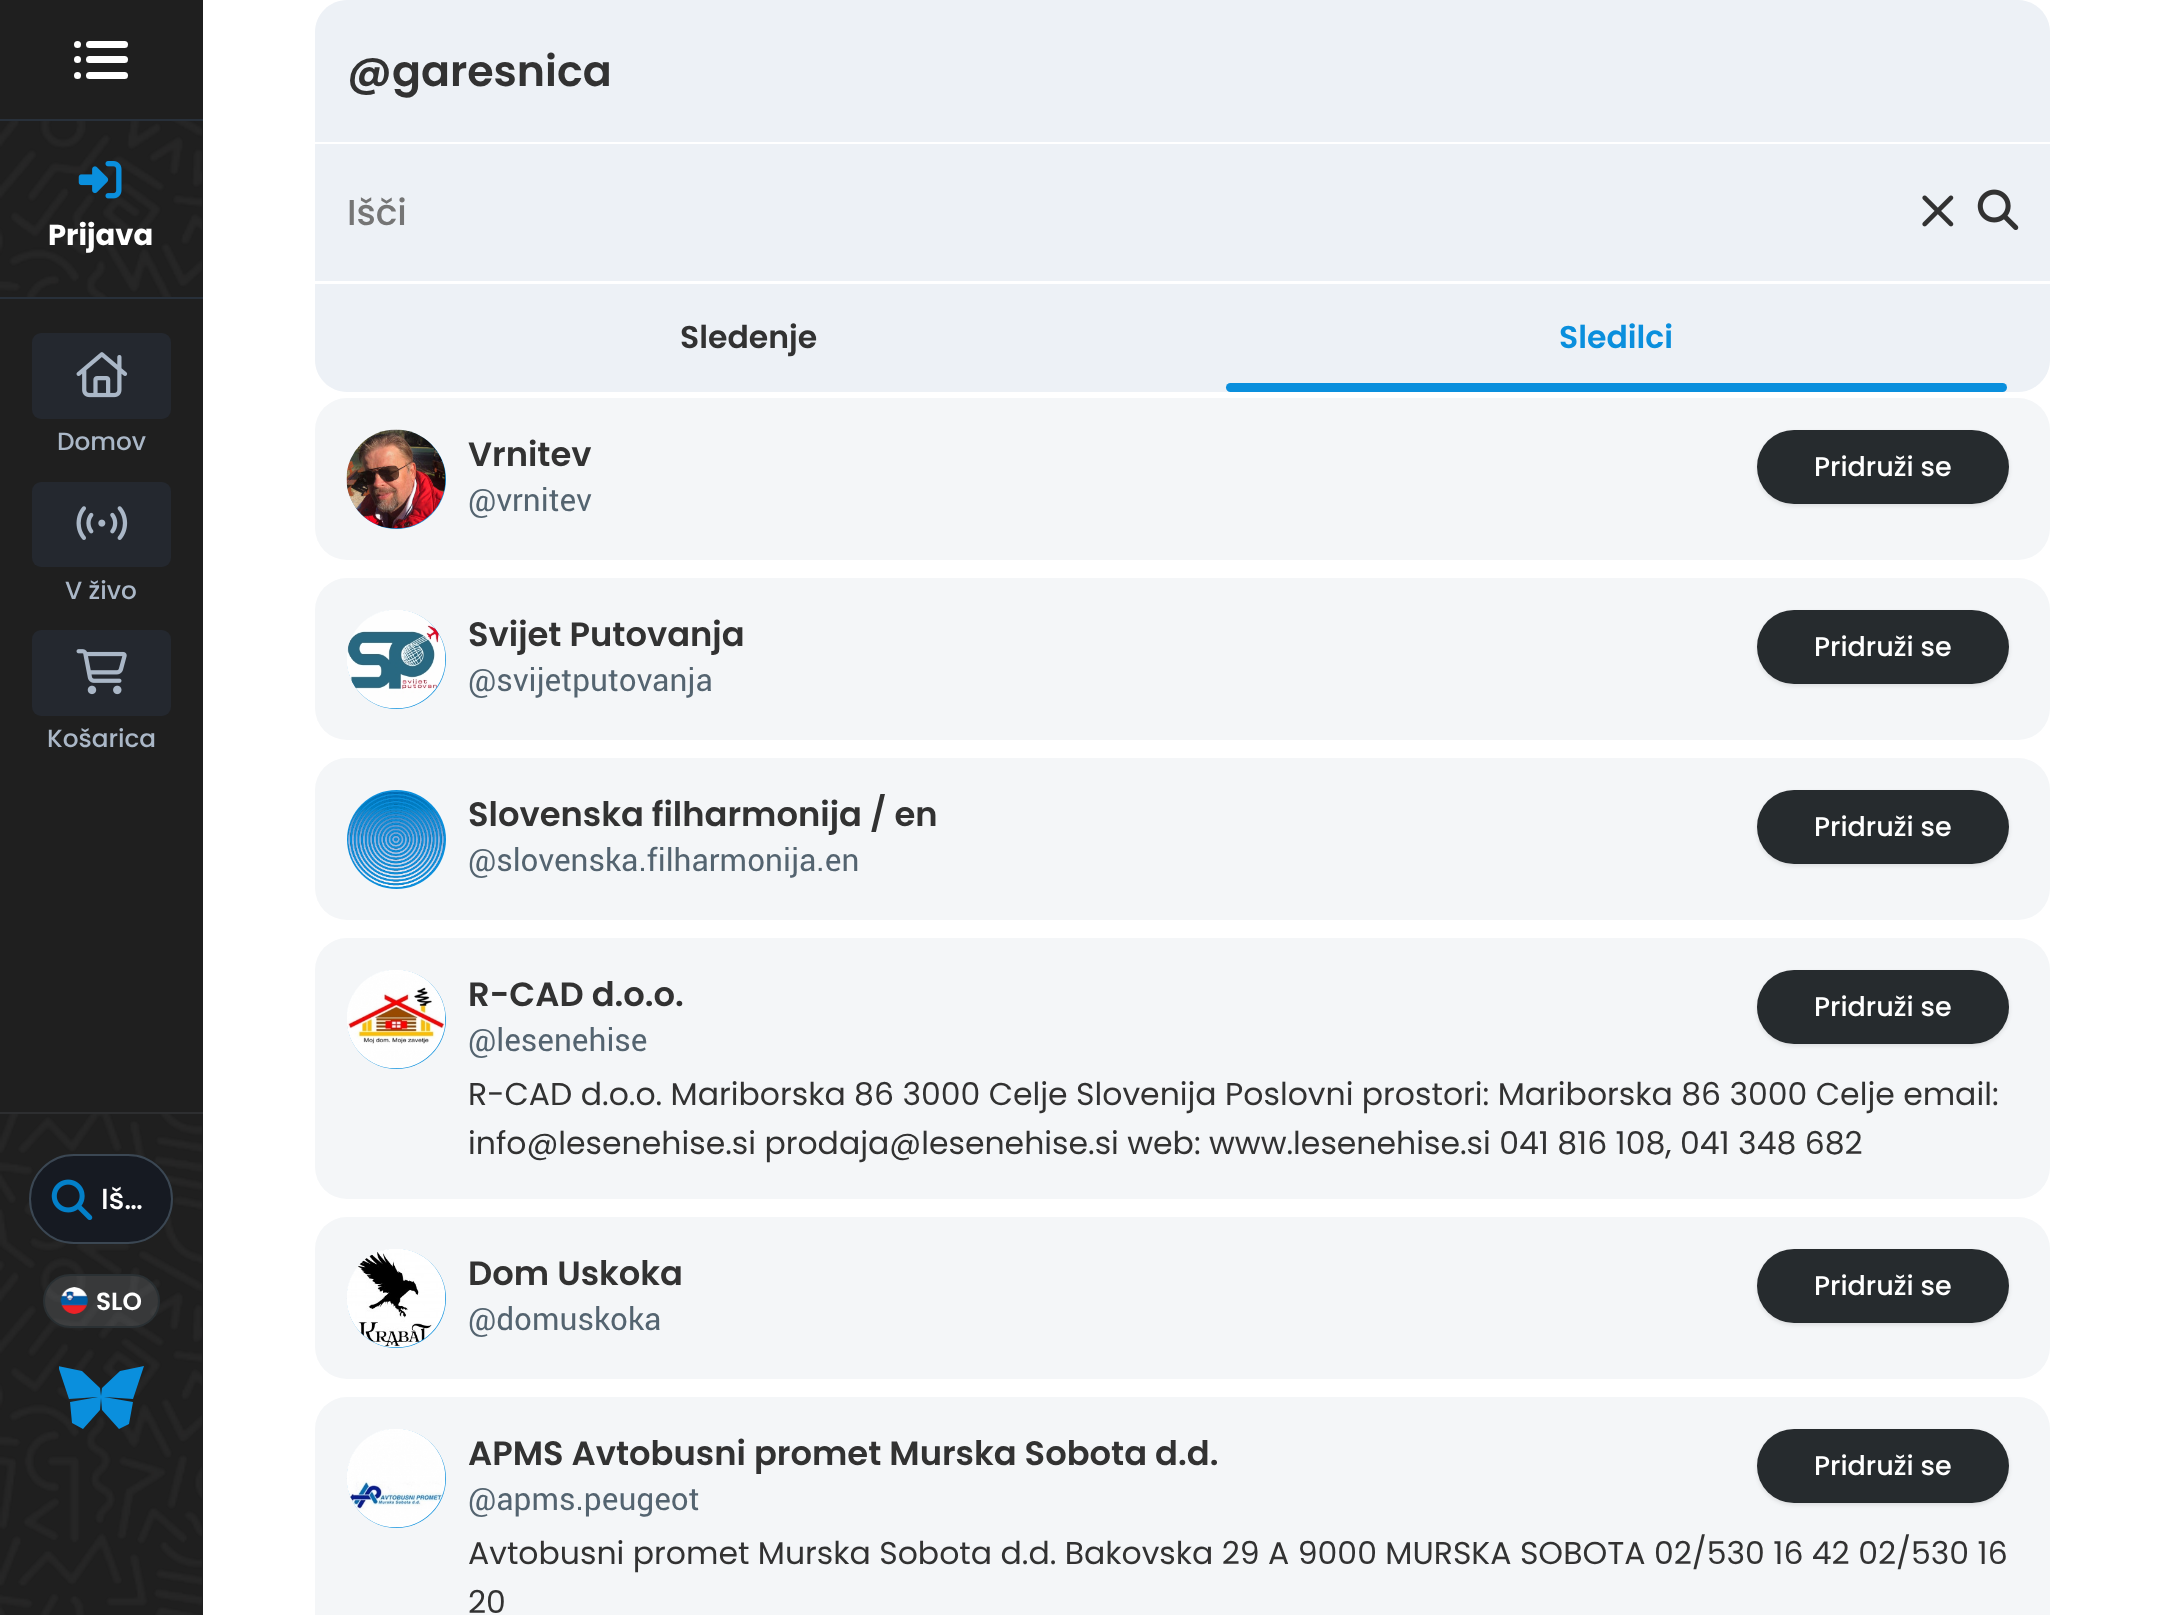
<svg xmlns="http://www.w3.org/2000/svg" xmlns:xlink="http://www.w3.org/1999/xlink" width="2162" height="1615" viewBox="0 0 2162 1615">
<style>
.cls-1{font:bold 29px Poppins;fill:#ffffff}
.cls-2{font:500 24.75px Poppins;fill:#aab7c7}
.cls-3{font:500 29px Poppins;fill:#ffffff}
.cls-4{font:600 24.75px Poppins;fill:#ffffff}
.cls-5{font:600 42.75px Poppins;fill:#323232}
.cls-6{font:500 36px Poppins;fill:#757575}
.cls-7{font:600 31.5px Poppins;fill:#323232}
.cls-8{font:600 31.5px Poppins;fill:#0a8fdd}
.cls-9{font:600 33.75px Poppins;fill:#323232}
.cls-10{font:31.5px Roboto;fill:#546470}
.cls-11{font:500 27px Poppins;fill:#ffffff}
.cls-12{font:31.5px Poppins;fill:#323232}
</style>
<defs>
<clipPath id="clip1"><rect x="59" y="1366" width="85" height="63"/></clipPath>
</defs>
<rect width="100%" height="100%" fill="#ffffff"/>
<rect fill="#1f1f1f" x="0" y="0" width="203" height="1615"/>
<circle fill="#ffffff" cx="77.5" cy="44.5" r="3.5"/>
<rect fill="#ffffff" x="86" y="41" width="42" height="7" rx="3.5"/>
<circle fill="#ffffff" cx="77.5" cy="59.5" r="3.5"/>
<rect fill="#ffffff" x="86" y="56" width="42" height="7" rx="3.5"/>
<circle fill="#ffffff" cx="77.5" cy="75.5" r="3.5"/>
<rect fill="#ffffff" x="86" y="72" width="42" height="7" rx="3.5"/>
<image xlink:href="image0.png" x="0" y="121" width="202" height="176"/>
<rect fill="#28303a" x="0" y="119" width="203" height="2"/>
<rect fill="#28303a" x="0" y="297" width="203" height="2"/>
<image xlink:href="image1.png" x="78" y="161" width="44" height="38"/>
<rect fill="#24282f" x="32" y="333" width="139" height="86" rx="9"/>
<image xlink:href="image2.png" x="76" y="352" width="52" height="46"/>
<rect fill="#24282f" x="32" y="482" width="139" height="85" rx="9"/>
<image xlink:href="image3.png" x="76" y="506" width="52" height="34"/>
<rect fill="#24282f" x="32" y="630" width="139" height="86" rx="9"/>
<image xlink:href="image4.png" x="76" y="649" width="51" height="46"/>
<image xlink:href="image5.png" x="0" y="1114" width="202" height="501"/>
<rect fill="#2d2e30" x="0" y="1112" width="203" height="2"/>
<rect fill="#161a22" stroke="#3b4753" stroke-width="2" x="30" y="1155" width="142" height="88" rx="44"/>
<image xlink:href="image6.png" x="51" y="1179" width="42" height="41"/>
<rect fill="#a2a7ac" fill-opacity="0.2" stroke="#2a3033" stroke-width="2" x="44" y="1275" width="115" height="52" rx="26"/>
<image xlink:href="image7.png" x="60" y="1287" width="28" height="27"/>
<g clip-path="url(#clip1)">
<path fill="#0a8fdd" d="M58 1366L69 1399L98 1397L70 1402L72 1423L83 1429L100 1410L101 1398L102 1410L119 1429L129 1424L133 1402L104 1397L133 1399L144 1366L120 1371L102 1388L101 1396L100 1388L82 1371Z"/>
</g>
<path fill="#edf1f6" d="M347 0H2018C2035.5 0 2050 14.5 2050 32V142H315V32C315 14.5 329.5 0 347 0Z"/>
<rect fill="#edf1f6" x="315" y="144" width="1735" height="137"/>
<image xlink:href="image8.png" x="1922" y="195" width="32" height="32"/>
<image xlink:href="image9.png" x="1977" y="189" width="42" height="41"/>
<path fill="#edf1f6" d="M315 284H1184V392H347C329.5 392 315 377.5 315 360Z"/>
<path fill="#edf1f6" d="M1184 284H2050V360C2050 377.5 2035.5 392 2018 392H1184Z"/>
<rect fill="#0a8fdd" x="1226" y="383" width="781" height="9" rx="4.5"/>
<rect fill="#f4f6f8" x="315" y="398" width="1735" height="162" rx="32"/>
<circle fill="#0a8fdd" cx="396.5" cy="479.5" r="49.5"/>
<image xlink:href="image10.png" x="346" y="429" width="100" height="100"/>
<rect fill="#000000" fill-opacity="0.1" filter="blur(2px)" x="1757" y="432" width="252" height="74" rx="37"/>
<rect fill="#262b2e" x="1757" y="430" width="252" height="74" rx="37"/>
<rect fill="#f4f6f8" x="315" y="578" width="1735" height="162" rx="32"/>
<circle fill="#0a8fdd" cx="396.5" cy="659.5" r="49.5"/>
<image xlink:href="image11.png" x="347" y="610" width="99" height="99"/>
<rect fill="#000000" fill-opacity="0.1" filter="blur(2px)" x="1757" y="612" width="252" height="74" rx="37"/>
<rect fill="#262b2e" x="1757" y="610" width="252" height="74" rx="37"/>
<rect fill="#f4f6f8" x="315" y="758" width="1735" height="162" rx="32"/>
<circle fill="#0a8fdd" cx="396.5" cy="839.5" r="49.5"/>
<image xlink:href="image12.png" x="348" y="791" width="96" height="97"/>
<rect fill="#000000" fill-opacity="0.1" filter="blur(2px)" x="1757" y="792" width="252" height="74" rx="37"/>
<rect fill="#262b2e" x="1757" y="790" width="252" height="74" rx="37"/>
<rect fill="#f4f6f8" x="315" y="938" width="1735" height="261" rx="32"/>
<circle fill="#0a8fdd" cx="396.5" cy="1019.5" r="49.5"/>
<image xlink:href="image13.png" x="347" y="970" width="99" height="99"/>
<rect fill="#000000" fill-opacity="0.1" filter="blur(2px)" x="1757" y="972" width="252" height="74" rx="37"/>
<rect fill="#262b2e" x="1757" y="970" width="252" height="74" rx="37"/>
<rect fill="#f4f6f8" x="315" y="1217" width="1735" height="162" rx="32"/>
<circle fill="#0a8fdd" cx="396.5" cy="1298.5" r="49.5"/>
<image xlink:href="image14.png" x="347" y="1249" width="99" height="99"/>
<rect fill="#000000" fill-opacity="0.1" filter="blur(2px)" x="1757" y="1251" width="252" height="74" rx="37"/>
<rect fill="#262b2e" x="1757" y="1249" width="252" height="74" rx="37"/>
<rect fill="#f4f6f8" x="315" y="1397" width="1735" height="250" rx="32"/>
<circle fill="#0a8fdd" cx="396.5" cy="1478.5" r="49.5"/>
<image xlink:href="image15.png" x="347" y="1429" width="99" height="99"/>
<rect fill="#000000" fill-opacity="0.1" filter="blur(2px)" x="1757" y="1431" width="252" height="74" rx="37"/>
<rect fill="#262b2e" x="1757" y="1429" width="252" height="74" rx="37"/>
<text class="cls-1" x="48" y="245">Prijava</text>
<text class="cls-2" x="57" y="450">Domov</text>
<text class="cls-2" x="65" y="599">V živo</text>
<text class="cls-2" x="47" y="747">Košarica</text>
<text class="cls-3" x="101" y="1209">Iš…</text>
<text class="cls-4" x="96" y="1310">SLO</text>
<text class="cls-5" x="347" y="86">@garesnica</text>
<text class="cls-6" x="347" y="225">Išči</text>
<text class="cls-7" x="680" y="348">Sledenje</text>
<text class="cls-8" x="1559" y="348">Sledilci</text>
<text class="cls-9" x="468" y="466">Vrnitev</text>
<text class="cls-10" x="468" y="511">@vrnitev</text>
<text class="cls-11" x="1814" y="476">Pridruži se</text>
<text class="cls-9" x="468" y="646">Svijet Putovanja</text>
<text class="cls-10" x="468" y="691">@svijetputovanja</text>
<text class="cls-11" x="1814" y="656">Pridruži se</text>
<text class="cls-9" x="468" y="826">Slovenska filharmonija / en</text>
<text class="cls-10" x="468" y="871">@slovenska.filharmonija.en</text>
<text class="cls-11" x="1814" y="836">Pridruži se</text>
<text class="cls-9" x="468" y="1006">R-CAD d.o.o.</text>
<text class="cls-10" x="468" y="1051">@lesenehise</text>
<text class="cls-11" x="1814" y="1016">Pridruži se</text>
<text class="cls-12"><tspan x="468" y="1105">R-CAD d.o.o. Mariborska 86 3000 Celje Slovenija Poslovni prostori: Mariborska 86 3000 Celje email:</tspan><tspan x="468" y="1154">info@lesenehise.si prodaja@lesenehise.si web: www.lesenehise.si 041 816 108, 041 348 682</tspan></text>
<text class="cls-9" x="468" y="1285">Dom Uskoka</text>
<text class="cls-10" x="468" y="1330">@domuskoka</text>
<text class="cls-11" x="1814" y="1295">Pridruži se</text>
<text class="cls-9" x="468" y="1465">APMS Avtobusni promet Murska Sobota d.d.</text>
<text class="cls-10" x="468" y="1510">@apms.peugeot</text>
<text class="cls-11" x="1814" y="1475">Pridruži se</text>
<text class="cls-12"><tspan x="468" y="1564">Avtobusni promet Murska Sobota d.d. Bakovska 29 A 9000 MURSKA SOBOTA 02/530 16 42 02/530 16</tspan><tspan x="468" y="1613">20</tspan></text>
</svg>
